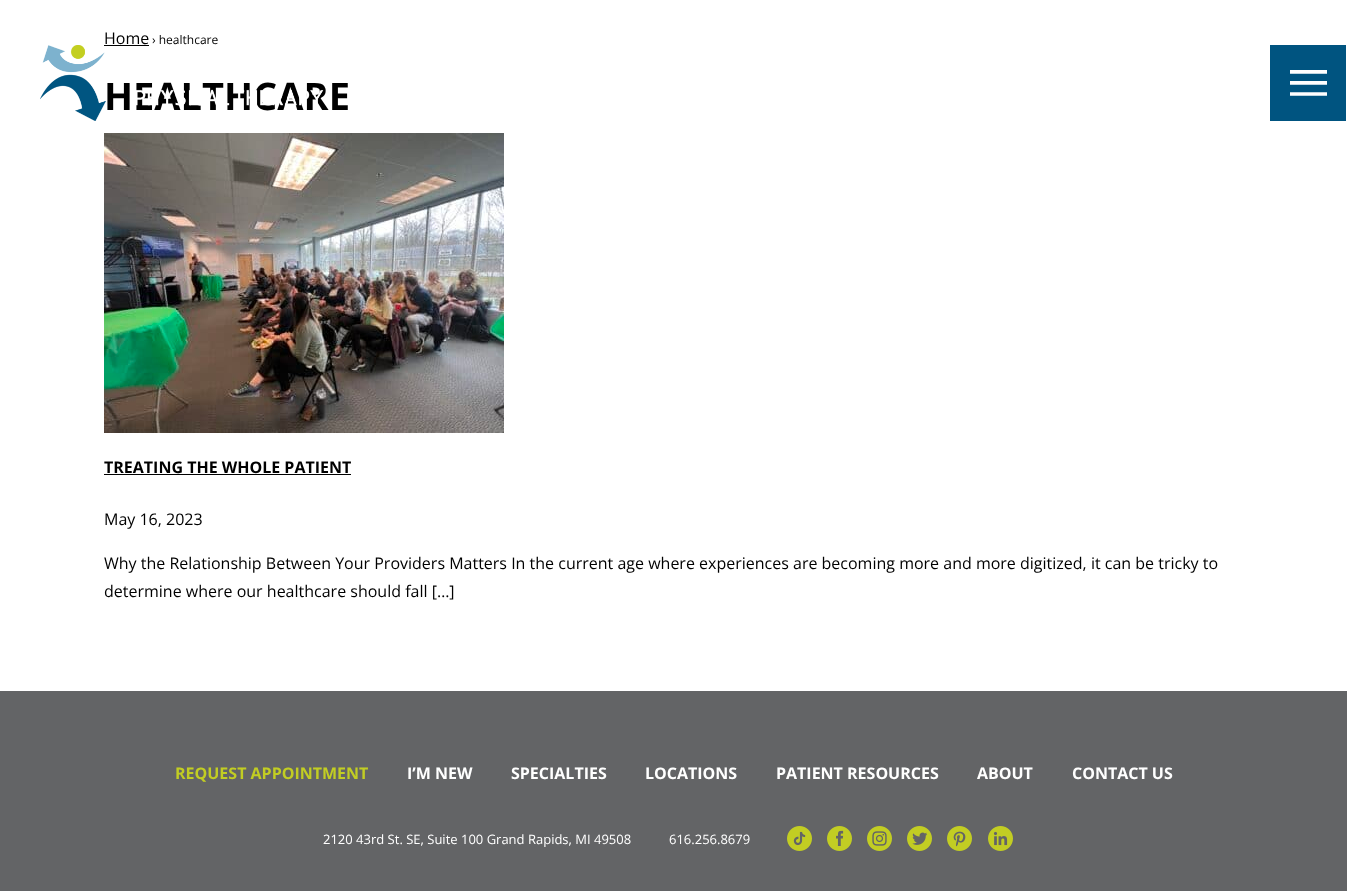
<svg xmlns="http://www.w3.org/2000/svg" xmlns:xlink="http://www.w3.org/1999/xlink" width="1347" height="891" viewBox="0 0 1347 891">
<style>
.cls-1{font:16px Open Sans;fill:#000000}
.cls-2{font:12px Open Sans;fill:#000000}
.cls-3{font:bold 38px Open Sans;fill:#000000}
.cls-4{font:bold 16px Open Sans;fill:#000000}
.cls-5{font:bold 16px Open Sans;fill:#c2cd23}
.cls-6{font:bold 16px Open Sans;fill:#ffffff}
.cls-7{font:13px Open Sans;fill:#ffffff}
</style>
<rect width="100%" height="100%" fill="#ffffff"/>
<rect fill="#000000" x="104" y="45" width="45" height="1"/>
<image xlink:href="image0.png" x="104" y="133" width="400" height="300"/>
<rect fill="#000000" x="104" y="474" width="247" height="1"/>
<rect fill="#005480" x="1270" y="45" width="76" height="76"/>
<image xlink:href="image2.png" x="1290" y="70" width="37" height="26"/>
<rect fill="#636466" x="0" y="691" width="1347" height="200"/>
<image xlink:href="image3.png" x="787" y="826" width="25" height="25"/>
<image xlink:href="image4.png" x="827" y="826" width="25" height="25"/>
<image xlink:href="image5.png" x="867" y="826" width="25" height="25"/>
<image xlink:href="image6.png" x="907" y="826" width="25" height="25"/>
<image xlink:href="image7.png" x="947" y="826" width="25" height="25"/>
<image xlink:href="image8.png" x="988" y="826" width="25" height="25"/>
<text class="cls-1" x="104" y="44">Home</text>
<text class="cls-2" x="152" y="44">› healthcare</text>
<text class="cls-3" x="104" y="110">HEALTHCARE</text>
<text class="cls-4" x="104" y="473">TREATING THE WHOLE PATIENT</text>
<text class="cls-1" x="104" y="525">May 16, 2023</text>
<text class="cls-1"><tspan x="104" y="569">Why the Relationship Between Your Providers Matters In the current age where experiences are becoming more and more digitized, it can be tricky to</tspan><tspan x="104" y="597">determine where our healthcare should fall […]</tspan></text>
<image xlink:href="image1.png" x="40" y="45" width="284" height="76"/>
<text class="cls-5" x="175" y="779">REQUEST APPOINTMENT</text>
<text class="cls-6" x="407" y="779">I’M NEW</text>
<text class="cls-6" x="511" y="779">SPECIALTIES</text>
<text class="cls-6" x="645" y="779">LOCATIONS</text>
<text class="cls-6" x="776" y="779">PATIENT RESOURCES</text>
<text class="cls-6" x="977" y="779">ABOUT</text>
<text class="cls-6" x="1072" y="779">CONTACT US</text>
<text class="cls-7" x="323" y="844">2120 43rd St. SE, Suite 100 Grand Rapids, MI 49508</text>
<text class="cls-7" x="669" y="844">616.256.8679</text>
</svg>
